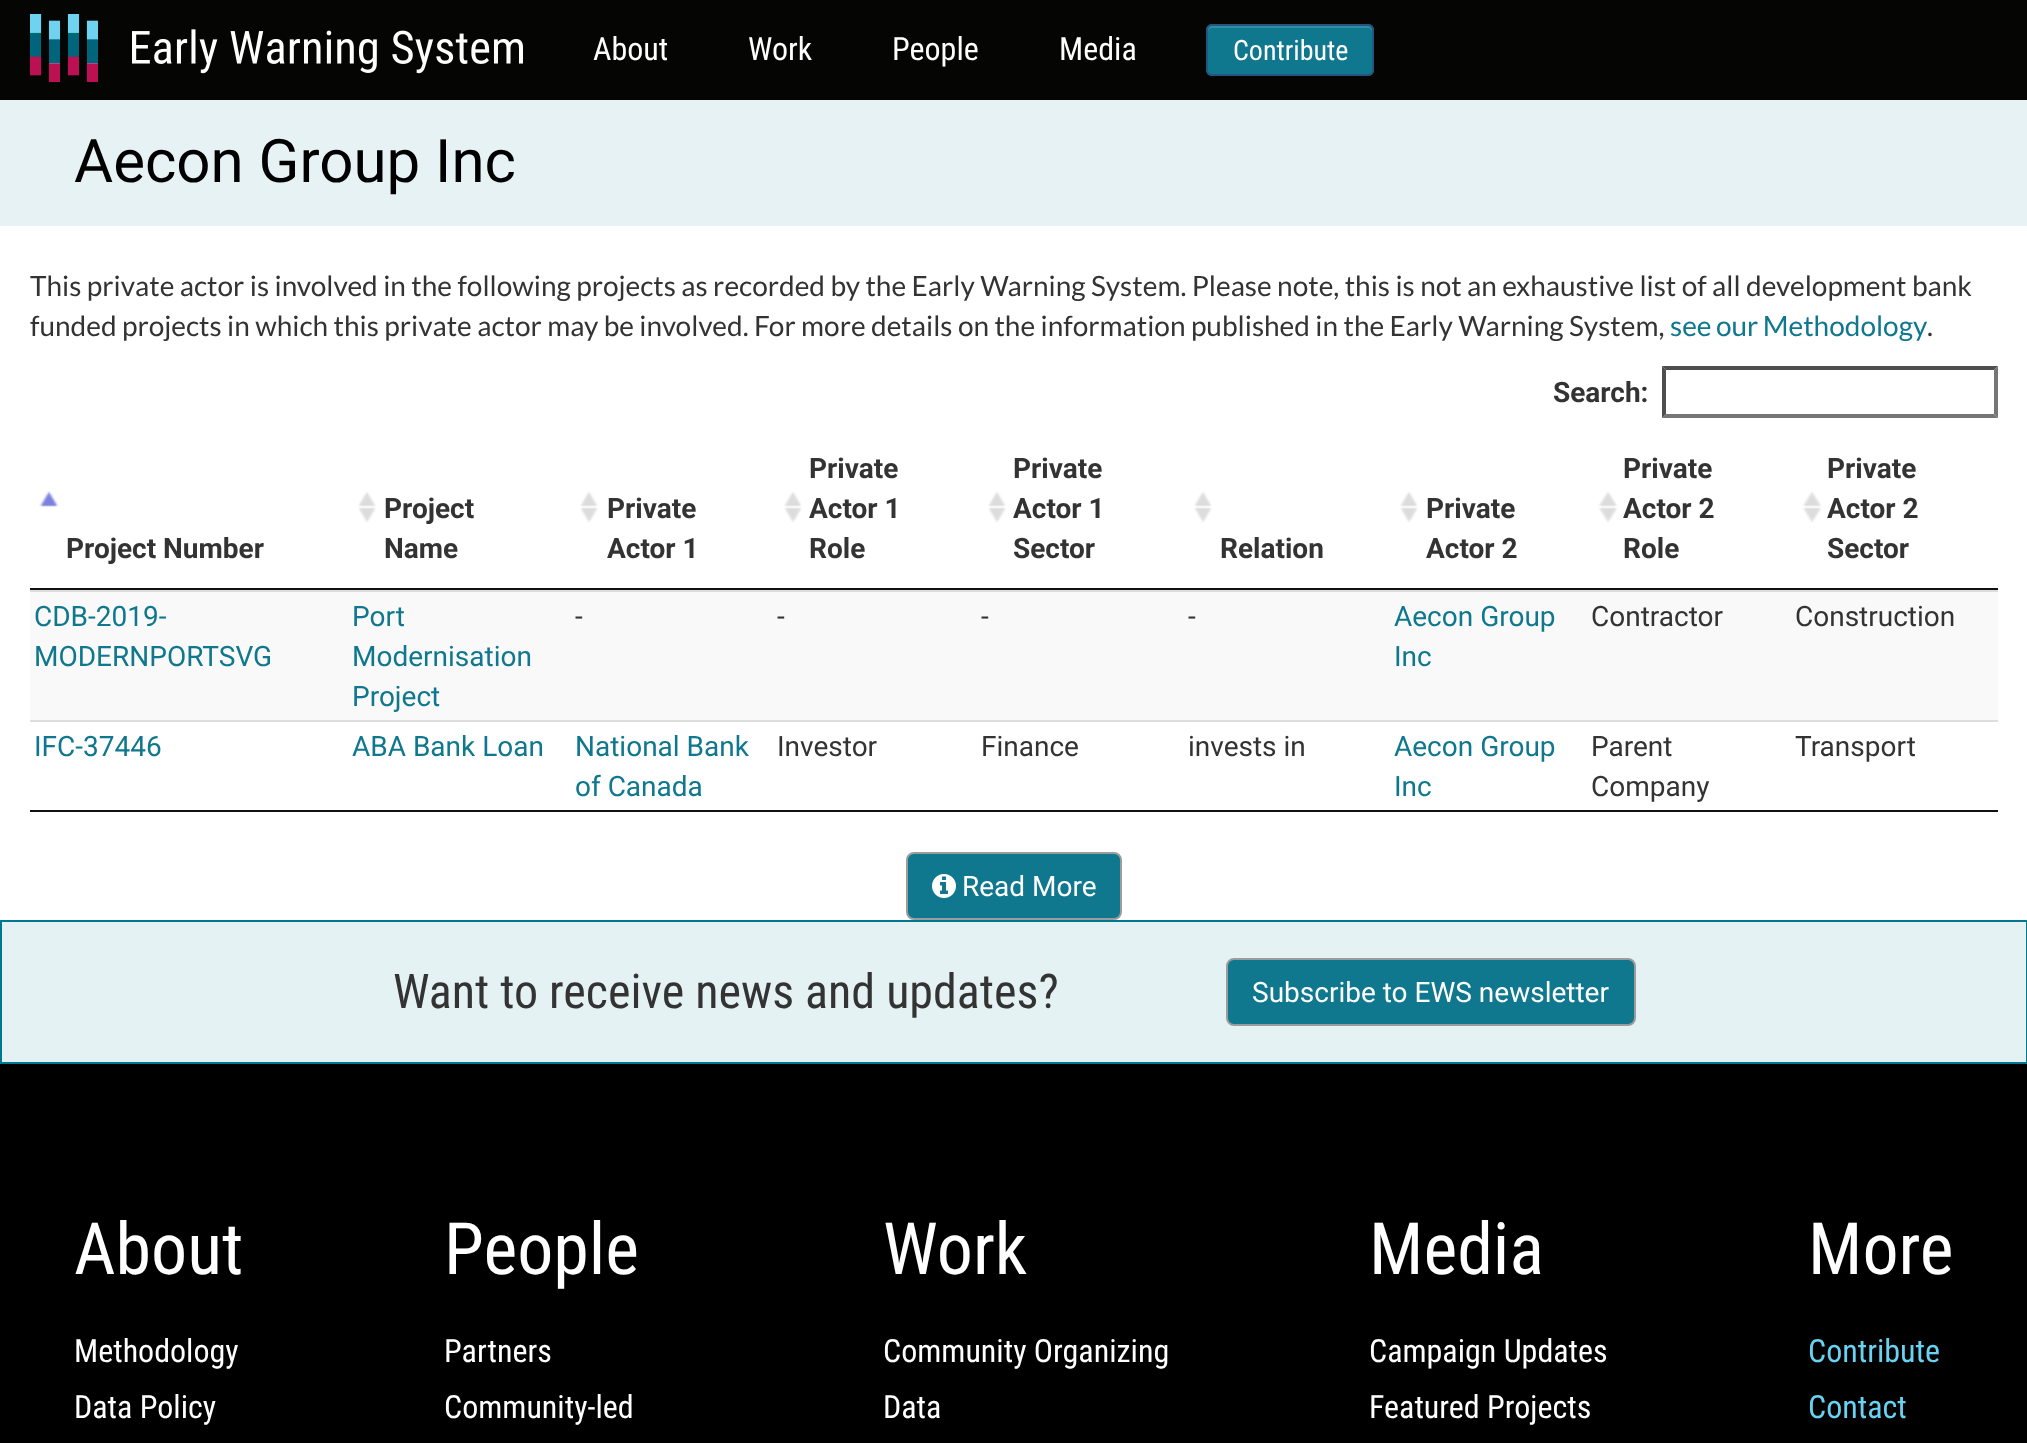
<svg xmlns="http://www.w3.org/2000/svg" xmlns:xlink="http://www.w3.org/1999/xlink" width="2027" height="1443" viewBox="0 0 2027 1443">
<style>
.cls-1{font:32px Roboto Condensed;fill:#ffffff}
.cls-2{font:28px Roboto Condensed;fill:#ffffff}
.cls-3{font:60px Roboto;fill:#000000}
.cls-4{font:28px Lato;fill:#333333}
.cls-5{font:28px Lato;fill:#0f778e}
.cls-6{font:bold 28px Roboto;fill:#333333}
.cls-7{font:28px Roboto;fill:#0f778e}
.cls-8{font:28px Roboto;fill:#333333}
.cls-9{font:28px Roboto;fill:#ffffff}
.cls-10{font:48px Roboto Condensed;fill:#333333}
.cls-11{font:72px Roboto Condensed;fill:#ffffff}
.cls-12{font:32px Roboto Condensed;fill:#69d2f2}
</style>
<rect width="100%" height="100%" fill="#ffffff"/>
<rect fill="#050504" x="0" y="0" width="2027" height="100"/>
<image xlink:href="image0.png" x="30" y="14" width="493" height="68"/>
<rect fill="#0f778e" x="1206" y="24" width="168" height="52" rx="6"/>
<path fill="#338b9f" d="M1212 28H1368C1370 28 1372 30 1372 32V30C1372 28 1370 26 1368 26H1212C1210 26 1208 28 1208 30V32C1208 30 1210 28 1212 28Z"/>
<rect fill="none" stroke="#245580" stroke-width="2" x="1207" y="25" width="166" height="50" rx="5"/>
<rect fill="#e6f2f4" x="0" y="100" width="2027" height="126"/>
<path fill="#4f4f4f" d="M1662 366H1998L1994 370H1666Z"/>
<path fill="#767676" d="M1998 366V418L1994 414V370Z"/>
<path fill="#767676" d="M1998 418H1662L1666 414H1994Z"/>
<path fill="#4f4f4f" d="M1662 418V366L1666 370V414Z"/>
<rect fill="#111111" x="30" y="810" width="1968" height="2"/>
<image xlink:href="image1.png" x="39" y="491" width="20" height="16"/>
<rect fill="#111111" x="30" y="588" width="1968" height="2"/>
<image xlink:href="image2.png" x="358" y="491" width="18" height="32"/>
<image xlink:href="image2.png" x="580" y="491" width="18" height="32"/>
<image xlink:href="image2.png" x="784" y="491" width="18" height="32"/>
<image xlink:href="image2.png" x="988" y="491" width="18" height="32"/>
<image xlink:href="image2.png" x="1194" y="491" width="18" height="32"/>
<image xlink:href="image2.png" x="1400" y="491" width="18" height="32"/>
<image xlink:href="image3.png" x="1598" y="491" width="20" height="32"/>
<image xlink:href="image3.png" x="1802" y="491" width="20" height="32"/>
<rect fill="#f9f9f9" x="30" y="592" width="1968" height="128"/>
<rect fill="#dddddd" x="30" y="590" width="1968" height="2"/>
<rect fill="#dddddd" x="30" y="720" width="1968" height="2"/>
<rect fill="#0f778e" stroke="#9c9c9c" stroke-width="2" x="907" y="853" width="214" height="66" rx="7"/>
<image xlink:href="image4.png" x="932" y="874" width="24" height="24"/>
<rect fill="#e5f2f4" stroke="#007790" stroke-width="2" x="1" y="921" width="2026" height="142"/>
<rect fill="#0f778e" stroke="#9c9c9c" stroke-width="2" x="1227" y="959" width="408" height="66" rx="7"/>
<rect fill="#000000" x="0" y="1064" width="2027" height="379"/>
<text class="cls-1" x="593" y="60">About</text>
<text class="cls-1" x="748" y="60">Work</text>
<text class="cls-1" x="892" y="60">People</text>
<text class="cls-1" x="1059" y="60">Media</text>
<text class="cls-2" x="1233" y="60">Contribute</text>
<text class="cls-3" x="74" y="182">Aecon Group Inc</text>
<text class="cls-4"><tspan x="30" y="296">This private actor is involved in the following projects as recorded by the Early Warning System. Please note, this is not an exhaustive list of all development bank</tspan><tspan x="30" y="336">funded projects in which this private actor may be involved. For more details on the information published in the Early Warning System,</tspan></text>
<text class="cls-5" x="1670" y="336" word-spacing="-1">see our Methodology</text>
<text class="cls-4" x="1927" y="336">.</text>
<text class="cls-6" x="1553" y="402">Search:</text>
<text class="cls-6" x="66" y="558">Project Number</text>
<text class="cls-6"><tspan x="384" y="518">Project</tspan><tspan x="384" y="558">Name</tspan></text>
<text class="cls-6"><tspan x="607" y="518">Private</tspan><tspan x="607" y="558">Actor 1</tspan></text>
<text class="cls-6"><tspan x="809" y="478">Private</tspan><tspan x="809" y="518">Actor 1</tspan><tspan x="809" y="558">Role</tspan></text>
<text class="cls-6"><tspan x="1013" y="478">Private</tspan><tspan x="1013" y="518">Actor 1</tspan><tspan x="1013" y="558">Sector</tspan></text>
<text class="cls-6" x="1220" y="558">Relation</text>
<text class="cls-6"><tspan x="1426" y="518">Private</tspan><tspan x="1426" y="558">Actor 2</tspan></text>
<text class="cls-6"><tspan x="1623" y="478">Private</tspan><tspan x="1623" y="518">Actor 2</tspan><tspan x="1623" y="558">Role</tspan></text>
<text class="cls-6"><tspan x="1827" y="478">Private</tspan><tspan x="1827" y="518">Actor 2</tspan><tspan x="1827" y="558">Sector</tspan></text>
<text class="cls-7"><tspan x="34" y="626">CDB-2019-</tspan><tspan x="34" y="666">MODERNPORTSVG</tspan></text>
<text class="cls-7"><tspan x="352" y="626">Port</tspan><tspan x="352" y="666">Modernisation</tspan><tspan x="352" y="706">Project</tspan></text>
<text class="cls-8" x="575" y="626">-</text>
<text class="cls-8" x="777" y="626">-</text>
<text class="cls-8" x="981" y="626">-</text>
<text class="cls-8" x="1188" y="626">-</text>
<text class="cls-7"><tspan x="1394" y="626">Aecon Group</tspan><tspan x="1394" y="666">Inc</tspan></text>
<text class="cls-8" x="1591" y="626">Contractor</text>
<text class="cls-8" x="1795" y="626">Construction</text>
<text class="cls-7" x="34" y="756">IFC-37446</text>
<text class="cls-7" x="352" y="756">ABA Bank Loan</text>
<text class="cls-7"><tspan x="575" y="756">National Bank</tspan><tspan x="575" y="796">of Canada</tspan></text>
<text class="cls-8" x="777" y="756">Investor</text>
<text class="cls-8" x="981" y="756">Finance</text>
<text class="cls-8" x="1188" y="756">invests in</text>
<text class="cls-7"><tspan x="1394" y="756">Aecon Group</tspan><tspan x="1394" y="796">Inc</tspan></text>
<text class="cls-8"><tspan x="1591" y="756">Parent</tspan><tspan x="1591" y="796">Company</tspan></text>
<text class="cls-8" x="1795" y="756">Transport</text>
<text class="cls-9" x="962" y="896">Read More</text>
<text class="cls-10" x="393" y="1008">Want to receive news and updates?</text>
<text class="cls-9" x="1252" y="1002">Subscribe to EWS newsletter</text>
<text class="cls-11" x="74" y="1274">About</text>
<text class="cls-1"><tspan x="74" y="1362">Methodology</tspan><tspan x="74" y="1418">Data Policy</tspan></text>
<text class="cls-11" x="444" y="1274">People</text>
<text class="cls-1"><tspan x="444" y="1362">Partners</tspan><tspan x="444" y="1418">Community-led</tspan></text>
<text class="cls-11" x="883" y="1274">Work</text>
<text class="cls-1"><tspan x="883" y="1362">Community Organizing</tspan><tspan x="883" y="1418">Data</tspan></text>
<text class="cls-11" x="1369" y="1274">Media</text>
<text class="cls-1"><tspan x="1369" y="1362">Campaign Updates</tspan><tspan x="1369" y="1418">Featured Projects</tspan></text>
<text class="cls-11" x="1808" y="1274">More</text>
<text class="cls-12"><tspan x="1808" y="1362">Contribute</tspan><tspan x="1808" y="1418">Contact</tspan></text>
</svg>
